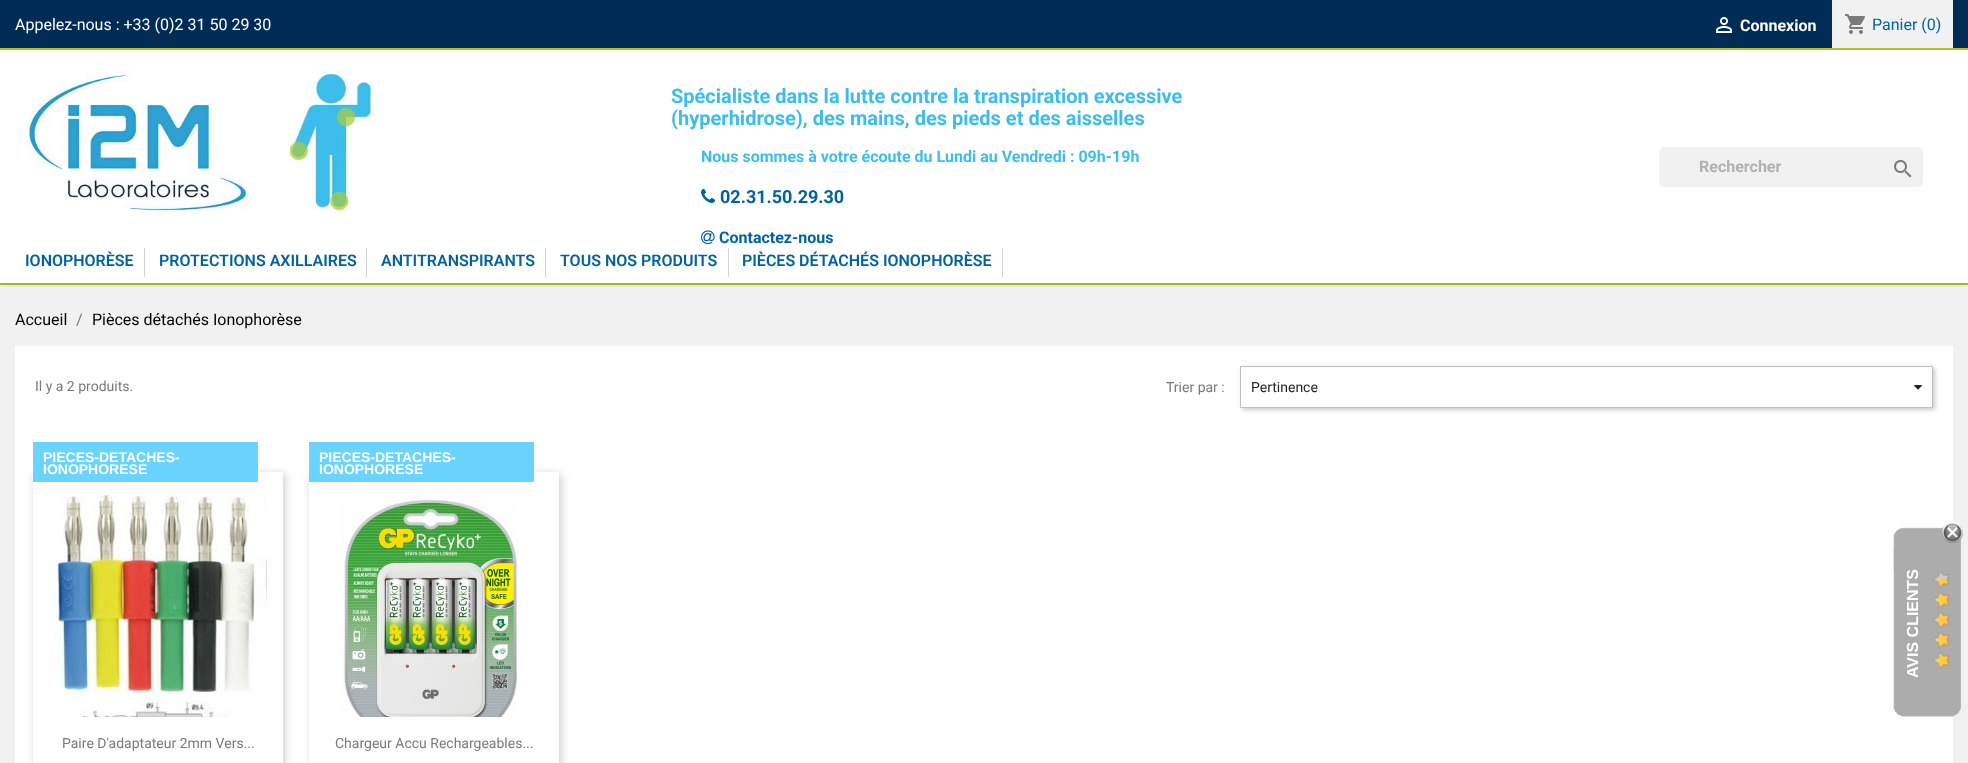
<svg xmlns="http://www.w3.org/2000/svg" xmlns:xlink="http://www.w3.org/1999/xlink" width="1968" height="763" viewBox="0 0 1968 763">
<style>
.cls-1{font:16px Roboto;fill:#ffffff}
.cls-2{font:bold 16px Roboto;fill:#ffffff}
.cls-3{font:16px Roboto;fill:#00639e}
.cls-4{font:bold 20px Roboto;fill:#3dbdea}
.cls-5{font:bold 16px Roboto;fill:#3dbdea}
.cls-6{font:bold 18px Roboto;fill:#00639e}
.cls-7{font:bold 16px Roboto;fill:#00639e}
.cls-8{font:bold 16px Roboto;fill:#b1b1b1}
.cls-9{font:600 16px Roboto;fill:#00639e}
.cls-10{font:16px Roboto;fill:#000000}
.cls-11{font:16px Roboto;fill:#7a7a7a}
.cls-12{font:14px Roboto;fill:#7a7a7a}
.cls-13{font:14px Roboto;fill:#232323}
.cls-14{font:bold 14px Liberation Sans;fill:#ffffff}
.cls-15{font:bold 16px Liberation Sans;fill:#ffffff}
</style>
<defs>
<clipPath id="clip1"><rect x="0" y="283" width="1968" height="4"/></clipPath>
<clipPath id="clip2"><path d="M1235 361H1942V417H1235ZM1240 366H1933V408H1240Z" clip-rule="evenodd"/></clipPath>
<clipPath id="clip3"><path d="M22 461H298V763H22ZM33 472H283V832H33Z" clip-rule="evenodd"/></clipPath>
<clipPath id="clip4"><path d="M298 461H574V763H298ZM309 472H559V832H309Z" clip-rule="evenodd"/></clipPath>
</defs>
<rect width="100%" height="100%" fill="#ffffff"/>
<rect fill="#f1f1f1" x="0" y="285" width="1968" height="478"/>
<rect fill="#abc621" x="0" y="283" width="1968" height="2"/>
<g clip-path="url(#clip1)">
<rect fill="#000000" fill-opacity="0.11" filter="blur(2.5px)" x="0" y="2" width="1968" height="283"/>
</g>
<rect fill="#002b55" x="0" y="0" width="1968" height="48"/>
<rect fill="#abc621" x="0" y="48" width="1968" height="2"/>
<image xlink:href="image0.png" x="1716" y="17" width="16" height="16"/>
<rect fill="#f1f1f1" x="1832" y="0" width="121" height="48"/>
<image xlink:href="image1.png" x="1845" y="14" width="20" height="20"/>
<image xlink:href="image2.png" x="26" y="70" width="350" height="144"/>
<image xlink:href="image3.png" x="701" y="188" width="15" height="15"/>
<image xlink:href="image4.png" x="701" y="230" width="14" height="15"/>
<rect fill="#f1f1f1" x="1659" y="147" width="264" height="40" rx="5"/>
<image xlink:href="image5.png" x="1894" y="160" width="18" height="18"/>
<rect fill="#d3d3d3" x="144" y="248" width="1" height="29"/>
<rect fill="#d3d3d3" x="366" y="248" width="1" height="29"/>
<rect fill="#d3d3d3" x="545" y="248" width="1" height="29"/>
<rect fill="#d3d3d3" x="728" y="248" width="1" height="29"/>
<rect fill="#d3d3d3" x="1002" y="248" width="1" height="29"/>
<rect fill="#ffffff" x="15" y="346" width="1938" height="417"/>
<g clip-path="url(#clip2)">
<rect fill="#000000" fill-opacity="0.2" filter="blur(2px)" x="1242" y="368" width="693" height="42"/>
</g>
<rect fill="none" stroke="#bfbfbf" x="1240.5" y="366.5" width="692" height="41"/>
<image xlink:href="image6.png" x="1914" y="385" width="8" height="5"/>
<g clip-path="url(#clip3)">
<rect fill="#000000" fill-opacity="0.2" filter="blur(4px)" x="35" y="474" width="250" height="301"/>
</g>
<rect fill="#6ad4ff" x="33" y="442" width="225" height="40"/>
<image xlink:href="image7.png" x="49" y="495" width="222" height="222"/>
<g clip-path="url(#clip4)">
<rect fill="#000000" fill-opacity="0.2" filter="blur(4px)" x="311" y="474" width="250" height="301"/>
</g>
<rect fill="#6ad4ff" x="309" y="442" width="225" height="40"/>
<image xlink:href="image8.png" x="341" y="495" width="177" height="222"/>
<image xlink:href="image10.png" x="1893" y="527" width="68" height="190"/>
<image xlink:href="image9.png" x="1942" y="522" width="21" height="21"/>
<image xlink:href="image11.png" x="1933" y="571" width="17" height="98"/>
<text class="cls-1" x="15" y="30">Appelez-nous : +33 (0)2 31 50 29 30</text>
<text class="cls-2" x="1740" y="31">Connexion</text>
<text class="cls-3" x="1872" y="30">Panier (0)</text>
<text class="cls-4"><tspan x="671" y="103">Spécialiste dans la lutte contre la transpiration excessive</tspan><tspan x="671" y="125">(hyperhidrose), des mains, des pieds et des aisselles</tspan></text>
<text class="cls-5" x="701" y="162">Nous sommes à votre écoute du Lundi au Vendredi : 09h-19h</text>
<text class="cls-6" x="720" y="203">02.31.50.29.30</text>
<text class="cls-7" x="719" y="243">Contactez-nous</text>
<text class="cls-8" x="1699" y="172">Rechercher</text>
<text class="cls-9" x="25" y="266">IONOPHORÈSE</text>
<text class="cls-9" x="159" y="266">PROTECTIONS AXILLAIRES</text>
<text class="cls-9" x="381" y="266">ANTITRANSPIRANTS</text>
<text class="cls-9" x="560" y="266">TOUS NOS PRODUITS</text>
<text class="cls-9" x="742" y="266">PIÈCES DÉTACHÉS IONOPHORÈSE</text>
<text class="cls-10" x="15" y="325">Accueil</text>
<text class="cls-11" x="76" y="325">/</text>
<text class="cls-10" x="92" y="325">Pièces détachés Ionophorèse</text>
<text class="cls-12" x="35" y="391">Il y a 2 produits.</text>
<text class="cls-12" x="1166" y="392">Trier par :</text>
<text class="cls-13" x="1251" y="392">Pertinence</text>
<text class="cls-14"><tspan x="43" y="462">PIECES-DETACHES-</tspan><tspan x="43" y="474">IONOPHORESE</tspan></text>
<text class="cls-12" x="62" y="748">Paire D'adaptateur 2mm Vers...</text>
<text class="cls-14"><tspan x="319" y="462">PIECES-DETACHES-</tspan><tspan x="319" y="474">IONOPHORESE</tspan></text>
<text class="cls-12" x="335" y="748">Chargeur Accu Rechargeables...</text>
<text class="cls-15" x="1918" y="678" transform="rotate(-90 1918 678)">AVIS CLIENTS</text>
</svg>
